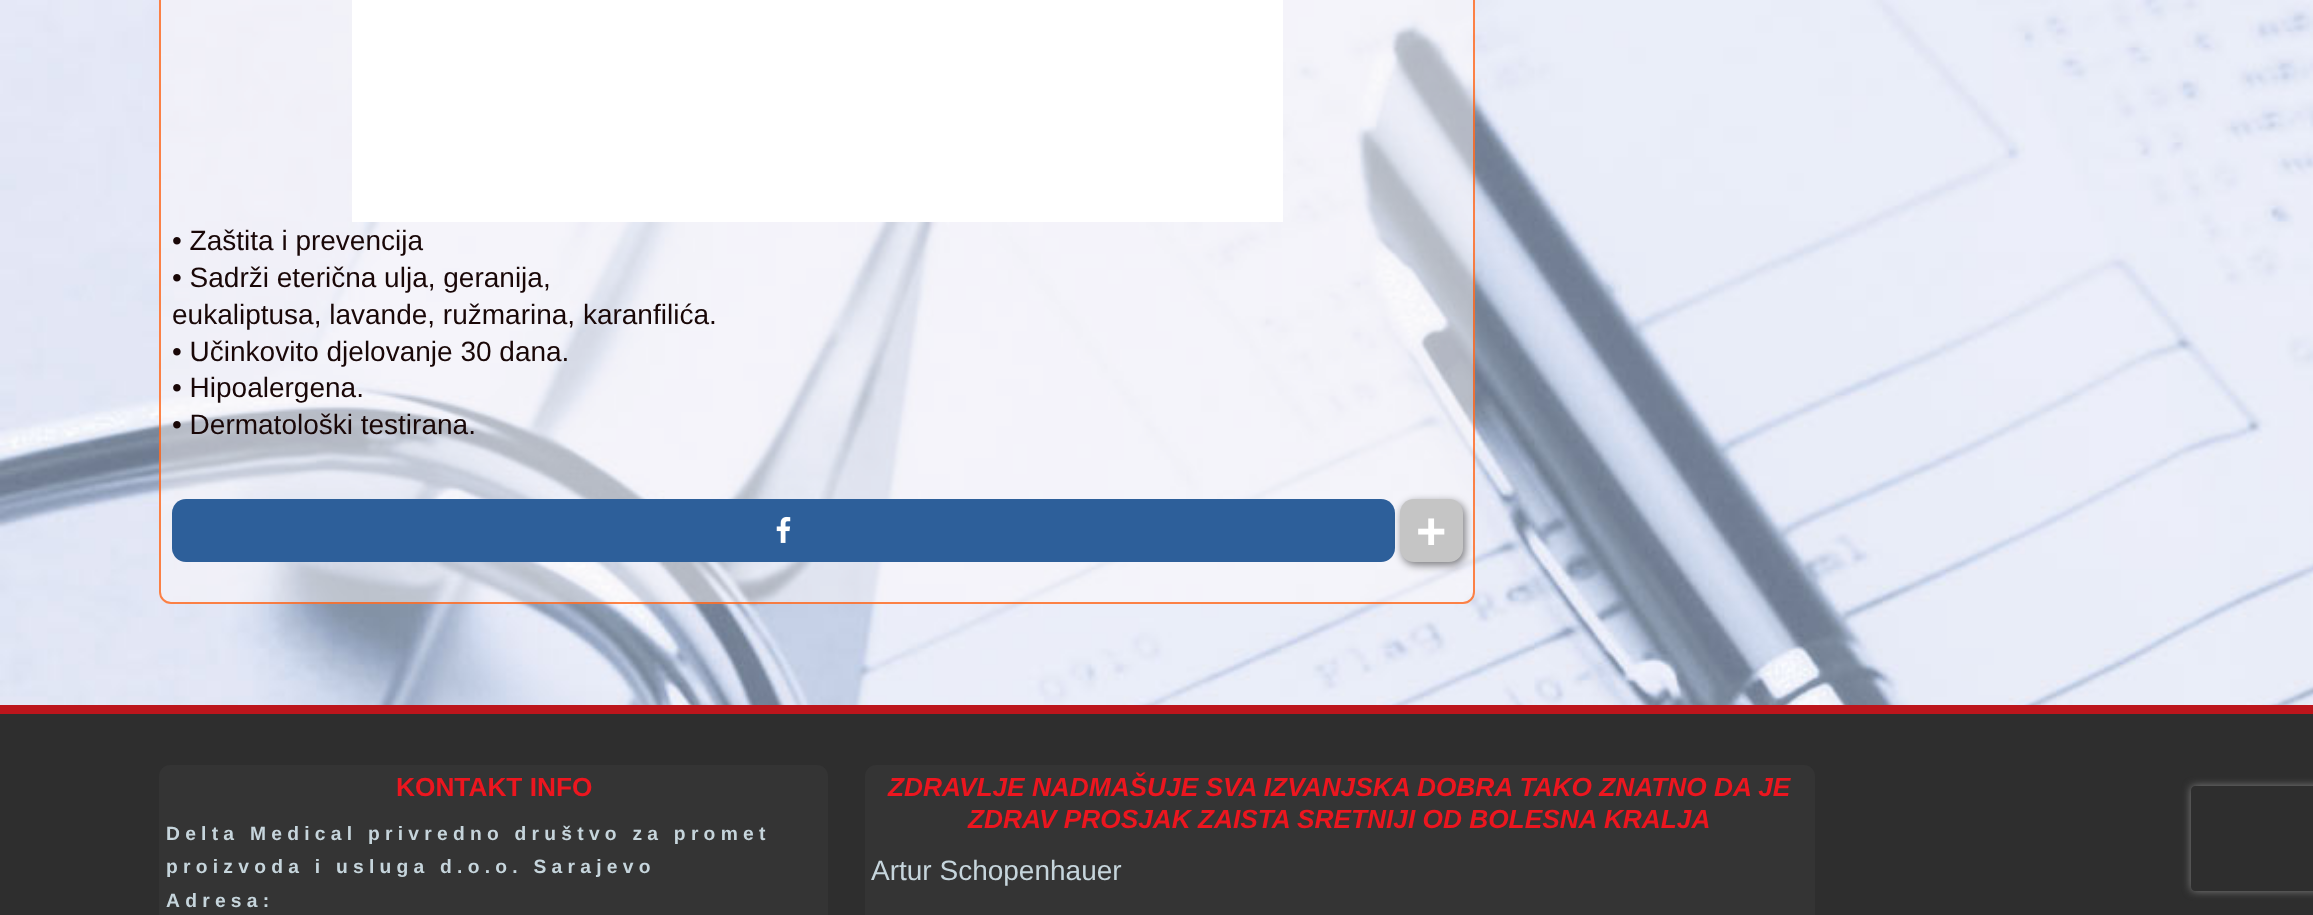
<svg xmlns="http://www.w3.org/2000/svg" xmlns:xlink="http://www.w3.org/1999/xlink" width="2313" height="915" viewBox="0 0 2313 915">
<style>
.cls-1{font:28px Liberation Sans;fill:#190707}
.cls-2{font:bold 52px Liberation Sans;fill:#ffffff}
.cls-3{font:bold 26.25px Liberation Sans;fill:#ec161f}
.cls-4{font:bold 19.25px Liberation Sans;letter-spacing:5.25px;fill:#c6d5dc}
.cls-5{font:italic bold 26.25px Liberation Sans;fill:#ec161f}
.cls-6{font:28px Liberation Sans;fill:#c6d5dc}
</style>
<defs>
<clipPath id="clip1"><path d="M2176 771H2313V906H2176ZM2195 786H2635C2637 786 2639 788 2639 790V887C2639 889 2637 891 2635 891H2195C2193 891 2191 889 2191 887V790C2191 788 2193 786 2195 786Z" clip-rule="evenodd"/></clipPath>
</defs>
<rect width="100%" height="100%" fill="#ffffff"/>
<image xlink:href="image0.png" x="0" y="0" width="2313" height="705"/>
<rect fill="#bc151c" x="0" y="705" width="2313" height="9"/>
<rect fill="#fffbfb" fill-opacity="0.47" x="159" y="-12" width="1316" height="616" rx="12"/>
<rect fill="none" stroke="#ff5500" stroke-opacity="0.72" stroke-width="2" x="160" y="-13" width="1314" height="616" rx="11"/>
<rect fill="#ffffff" x="352" y="0" width="931" height="222"/>
<rect fill="#2d5f9a" x="172" y="499" width="1223" height="63" rx="14"/>
<image xlink:href="image1.png" x="776" y="516" width="15" height="27"/>
<rect fill="#000000" fill-opacity="0.51" filter="blur(4.5px)" x="1402" y="502" width="63" height="63" rx="14"/>
<rect fill="#c5c5c5" x="1400" y="499" width="63" height="63" rx="14"/>
<rect fill="#2e2e2e" x="0" y="714" width="2313" height="201"/>
<rect fill="#343434" x="159" y="765" width="669" height="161" rx="11"/>
<rect fill="#343434" x="865" y="765" width="950" height="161" rx="11"/>
<g clip-path="url(#clip1)">
<rect fill="#808080" filter="blur(4.5px)" x="2191" y="786" width="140" height="105" rx="4"/>
</g>
<text class="cls-1"><tspan x="172" y="250">• Zaštita i prevencija</tspan><tspan x="172" y="287">• Sadrži eterična ulja, geranija,</tspan><tspan x="172" y="324">eukaliptusa, lavande, ružmarina, karanfilića.</tspan><tspan x="172" y="361">• Učinkovito djelovanje 30 dana.</tspan><tspan x="172" y="397">• Hipoalergena.</tspan><tspan x="172" y="434">• Dermatološki testirana.</tspan></text>
<text class="cls-2" x="1416" y="549">+</text>
<text class="cls-3" x="396" y="796">KONTAKT INFO</text>
<text class="cls-4"><tspan x="166" y="840">Delta Medical privredno društvo za promet</tspan><tspan x="166" y="873">proizvoda i usluga d.o.o. Sarajevo</tspan><tspan x="166" y="907">Adresa:</tspan></text>
<text class="cls-5" x="888" y="796">ZDRAVLJE NADMAŠUJE SVA IZVANJSKA DOBRA TAKO ZNATNO DA JE</text>
<text class="cls-5" x="968" y="828">ZDRAV PROSJAK ZAISTA SRETNIJI OD BOLESNA KRALJA</text>
<text class="cls-6" x="871" y="880">Artur Schopenhauer</text>
</svg>
